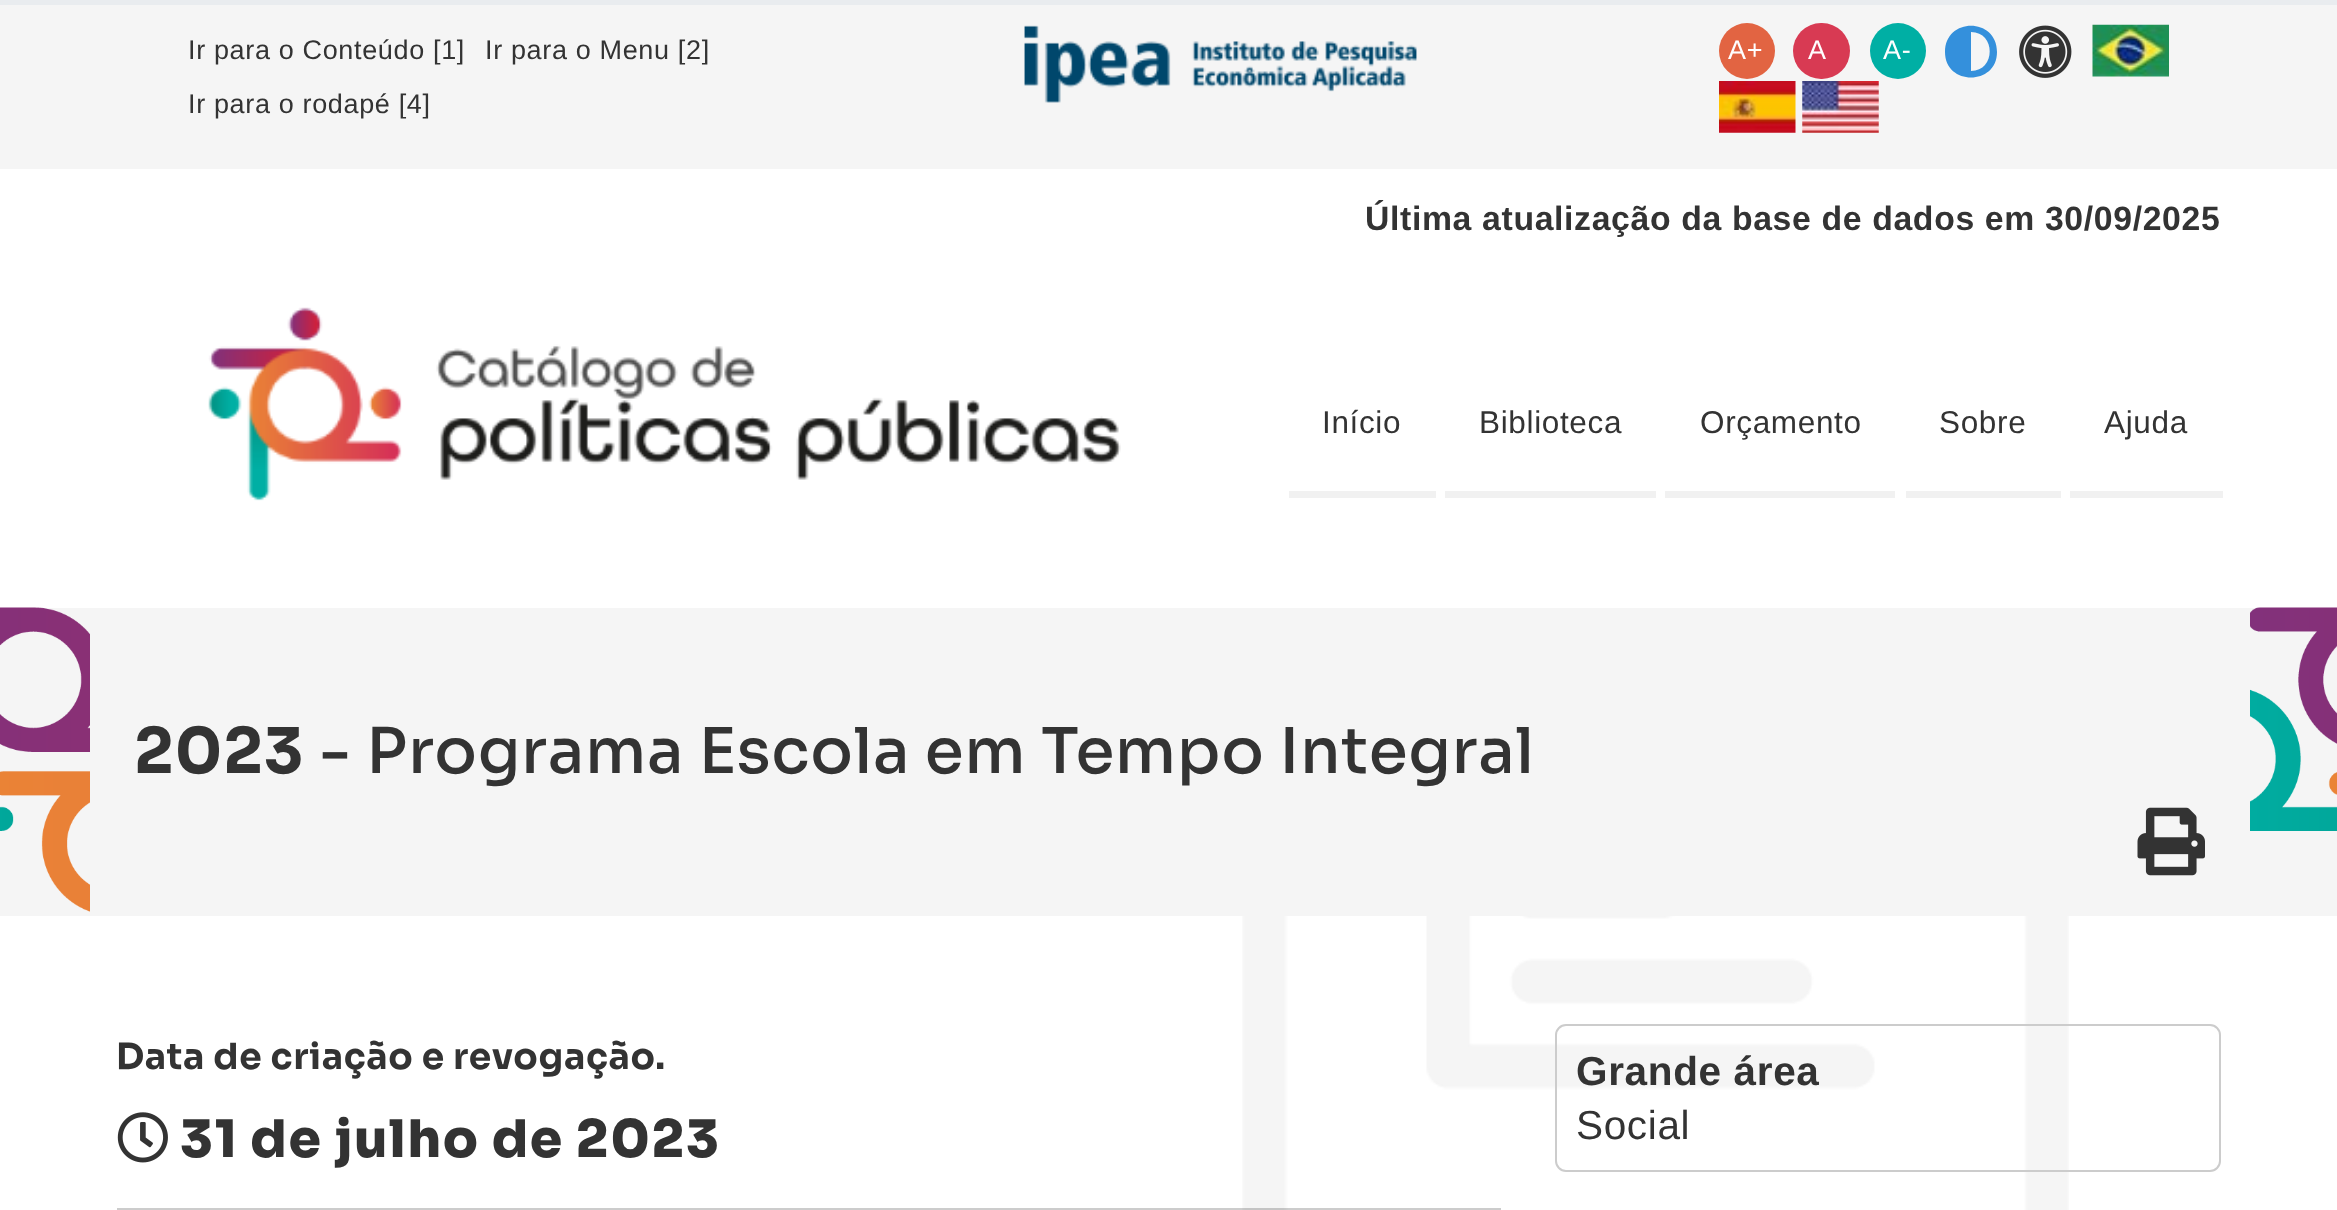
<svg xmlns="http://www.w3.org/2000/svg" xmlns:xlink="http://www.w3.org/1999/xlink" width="2337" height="1210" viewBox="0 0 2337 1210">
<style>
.cls-1{font:27px Liberation Sans;letter-spacing:0.65px;fill:#333333}
.cls-2{font:27px Liberation Sans;letter-spacing:0.65px;fill:#ffffff}
.cls-3{font:bold 33.75px Liberation Sans;letter-spacing:0.65px;fill:#333333}
.cls-4{font:31.5px Liberation Sans;letter-spacing:0.65px;fill:#333333}
.cls-5{font:bold 63px Sora;letter-spacing:0.65px;fill:#333333}
.cls-6{font:500 63px Sora;letter-spacing:0.65px;fill:#333333}
.cls-7{font:bold 36px Sora;letter-spacing:0.65px;fill:#333333}
.cls-8{font:800 51.75px Sora;letter-spacing:1.5px;fill:#333333}
.cls-9{font:bold 40.5px Liberation Sans;letter-spacing:0.65px;fill:#333333}
.cls-10{font:40.5px Liberation Sans;letter-spacing:0.65px;fill:#333333}
</style>
<rect width="100%" height="100%" fill="#ffffff"/>
<rect fill="#e9ecef" x="0" y="0" width="2337" height="5"/>
<rect fill="#f5f5f5" x="0" y="5" width="2337" height="164"/>
<image xlink:href="image0.png" x="1024" y="25" width="393" height="78"/>
<circle fill="#e26442" cx="1747" cy="51" r="28"/>
<rect fill="#d83a53" x="1793" y="23" width="57" height="56" rx="28"/>
<circle fill="#00afa4" cx="1898" cy="51" r="28"/>
<path fill="#3490dc" d="M1945 52C1945 86 1997 86 1997 52C1997 17 1945 17 1945 52ZM1971 71V32C1996 32 1996 71 1971 71Z"/>
<image xlink:href="image1.png" x="2019" y="25" width="53" height="53"/>
<image xlink:href="image2.png" x="2092" y="24" width="77" height="53"/>
<image xlink:href="image3.png" x="1719" y="81" width="77" height="52"/>
<image xlink:href="image4.png" x="1802" y="81" width="77" height="52"/>
<image xlink:href="image5.png" x="208" y="307" width="913" height="194"/>
<rect fill="#f1f1f1" x="1289" y="491" width="147" height="7"/>
<rect fill="#f1f1f1" x="1445" y="491" width="211" height="7"/>
<rect fill="#f1f1f1" x="1665" y="491" width="230" height="7"/>
<rect fill="#f1f1f1" x="1906" y="491" width="155" height="7"/>
<rect fill="#f1f1f1" x="2070" y="491" width="153" height="7"/>
<rect fill="#f5f5f5" x="0" y="608" width="2337" height="308"/>
<image xlink:href="image6.png" x="0" y="607" width="90" height="305"/>
<image xlink:href="image7.png" x="2250" y="607" width="87" height="224"/>
<image xlink:href="image8.png" x="2137" y="807" width="68" height="69"/>
<image xlink:href="image9.png" x="1242" y="916" width="827" height="294"/>
<image xlink:href="image10.png" x="117" y="1112" width="51" height="51"/>
<rect fill="#333333" fill-opacity="0.25" x="117" y="1208" width="1384" height="2"/>
<rect fill="none" stroke="#cccccc" stroke-width="2" x="1556" y="1025" width="664" height="146" rx="10"/>
<text class="cls-1" x="188" y="59">Ir para o Conteúdo [1]</text>
<text class="cls-1" x="485" y="59">Ir para o Menu [2]</text>
<text class="cls-1" x="188" y="113">Ir para o rodapé [4]</text>
<text class="cls-2" x="1728" y="59">A+</text>
<text class="cls-2" x="1808" y="59">A</text>
<text class="cls-2" x="1883" y="59">A-</text>
<text class="cls-3" x="1365" y="230">Última atualização da base de dados em 30/09/2025</text>
<text class="cls-4" x="1322" y="433">Início</text>
<text class="cls-4" x="1479" y="433">Biblioteca</text>
<text class="cls-4" x="1700" y="433">Orçamento</text>
<text class="cls-4" x="1939" y="433">Sobre</text>
<text class="cls-4" x="2104" y="433">Ajuda</text>
<text class="cls-5" x="134" y="773">2023</text>
<text class="cls-6" x="319" y="773">- Programa Escola em Tempo Integral</text>
<text class="cls-7" x="116" y="1069">Data de criação e revogação.</text>
<text class="cls-8" x="180" y="1157">31 de julho de 2023</text>
<text class="cls-9" x="1576" y="1085">Grande área</text>
<text class="cls-10" x="1576" y="1139">Social</text>
</svg>
